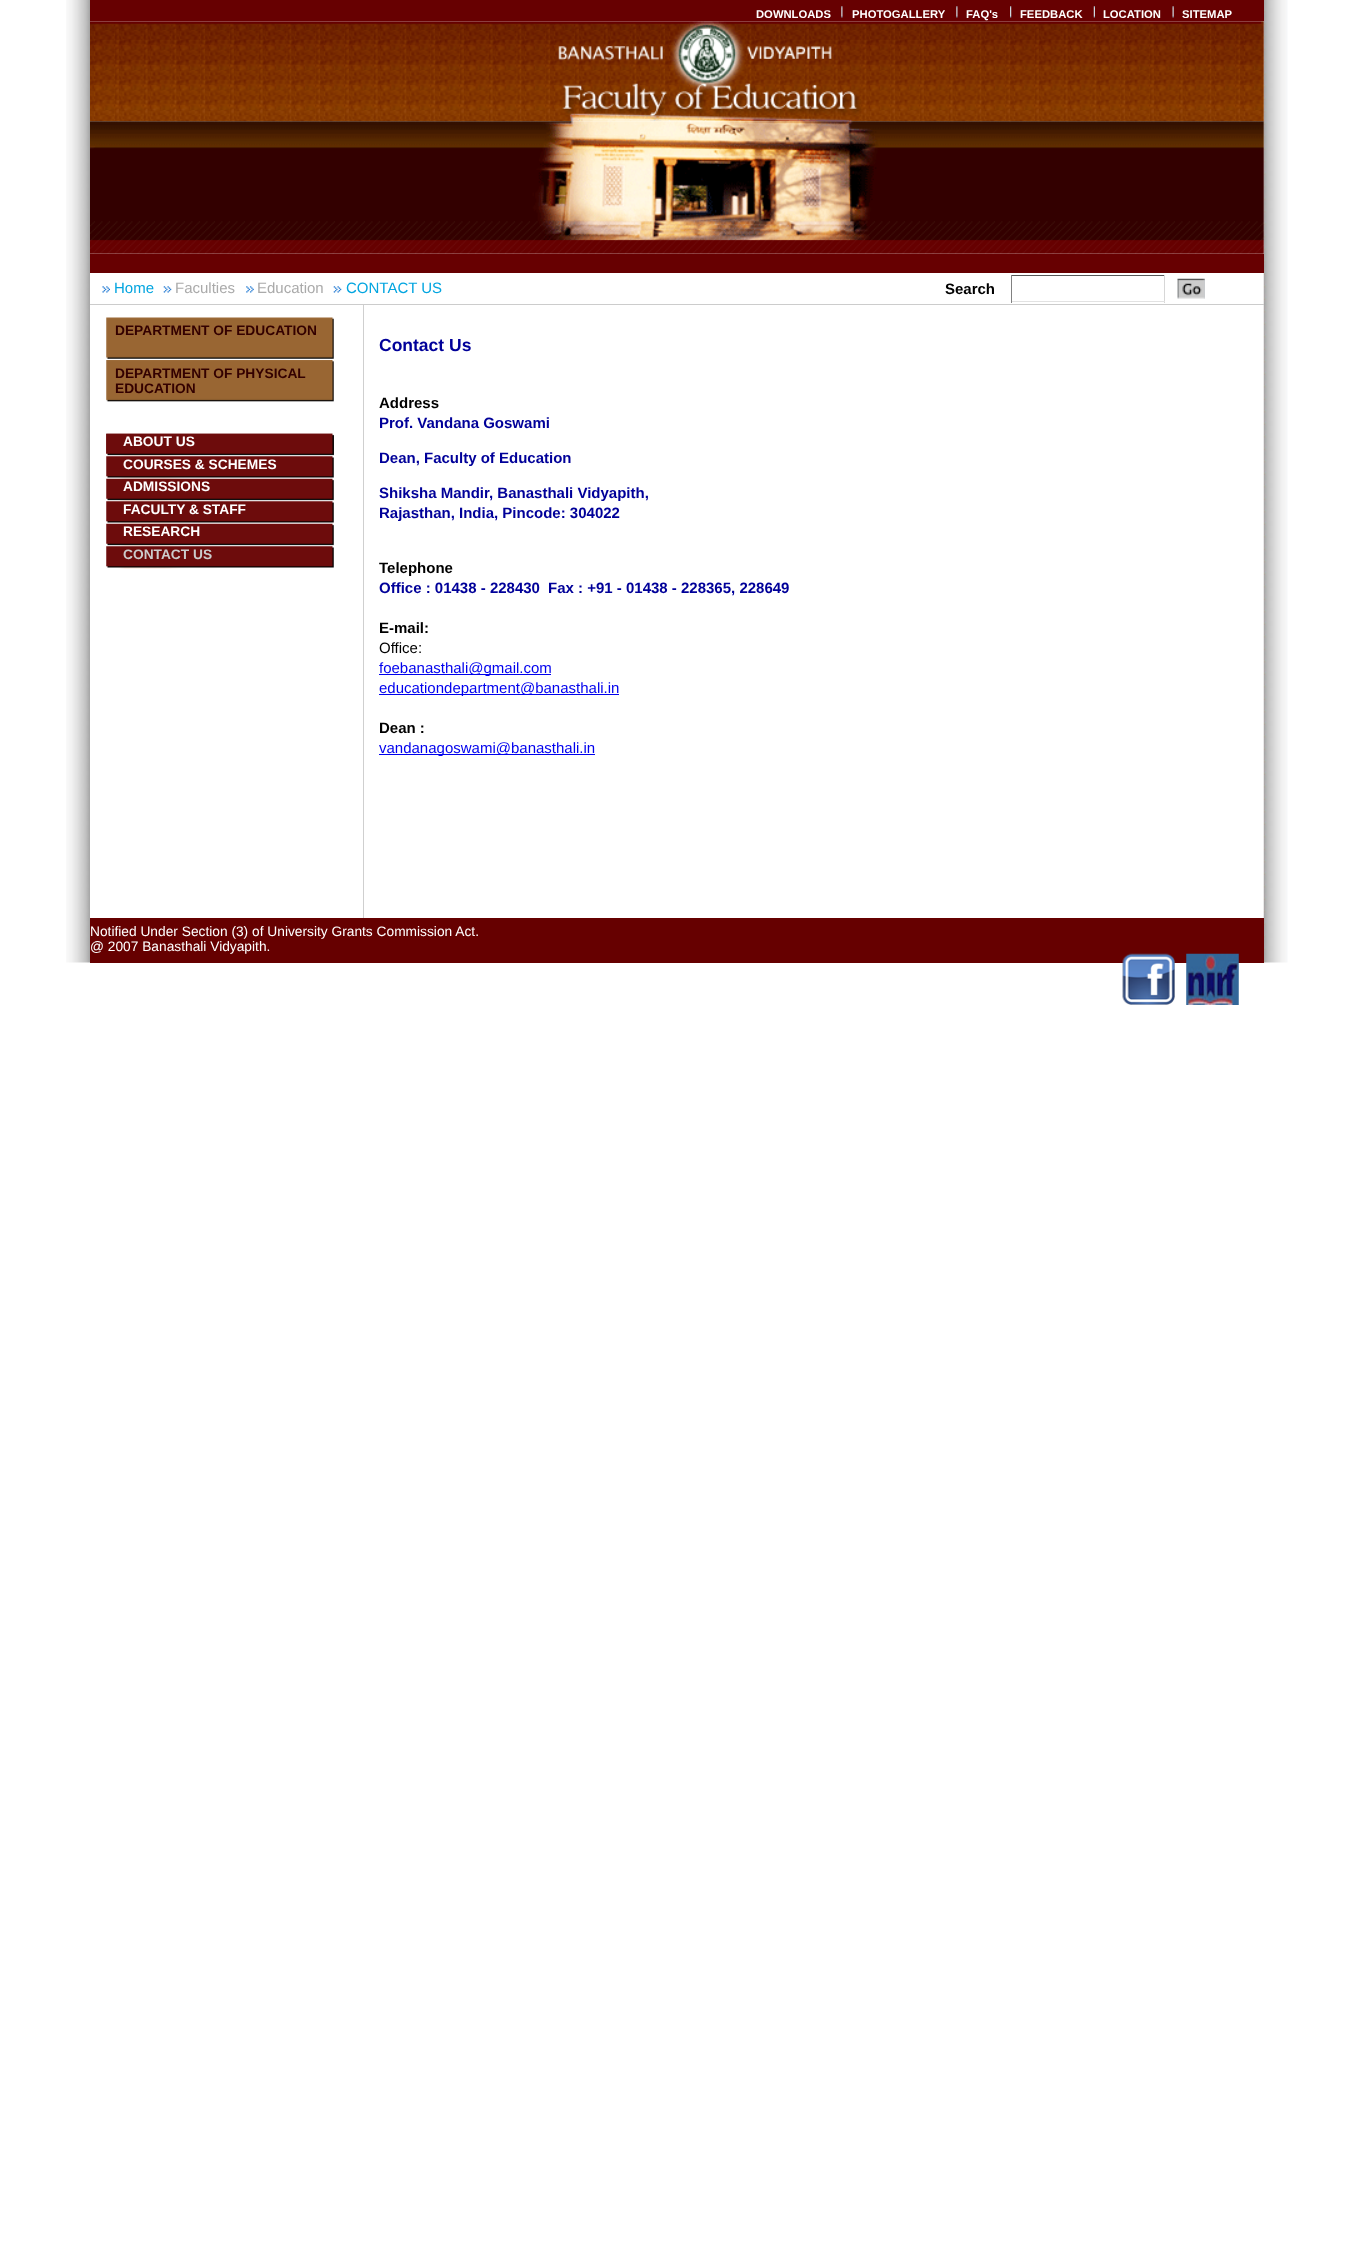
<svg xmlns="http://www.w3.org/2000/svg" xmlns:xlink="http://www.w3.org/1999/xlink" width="1353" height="2252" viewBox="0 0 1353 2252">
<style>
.cls-1{font:bold 11.25px Liberation Sans;fill:#ffffff}
.cls-2{font:15px Liberation Sans;fill:#03a5e0}
.cls-3{font:15px Liberation Sans;fill:#aaaaaa}
.cls-4{font:bold 15px Liberation Sans;fill:#000000}
.cls-5{font:bold 13.75px Liberation Sans;fill:#330000}
.cls-6{font:bold 13.75px Liberation Sans;fill:#ffffff}
.cls-7{font:bold 13.75px Liberation Sans;fill:#cccccc}
.cls-8{font:bold 17.5px Liberation Sans;fill:#000099}
.cls-9{font:bold 15px Liberation Sans;fill:#000099}
.cls-10{font:15px Liberation Sans;fill:#000000}
.cls-11{font:15px Liberation Sans;fill:#0000ee}
.cls-12{font:13.75px Liberation Sans;fill:#ffffff}
</style>
<rect width="100%" height="100%" fill="#ffffff"/>
<image xlink:href="image0.png" x="1263" y="0" width="25" height="963"/>
<image xlink:href="image1.png" x="66" y="0" width="24" height="963"/>
<rect fill="#670001" x="90" y="0" width="1174" height="21"/>
<image xlink:href="image2.png" x="841" y="6" width="2" height="12"/>
<image xlink:href="image2.png" x="956" y="6" width="2" height="12"/>
<image xlink:href="image3.png" x="1010" y="6" width="2" height="12"/>
<image xlink:href="image4.png" x="1093" y="6" width="2" height="12"/>
<image xlink:href="image5.png" x="1172" y="6" width="2" height="12"/>
<image xlink:href="image6.png" x="90" y="21" width="1174" height="101"/>
<image xlink:href="image7.png" x="90" y="121" width="1174" height="133"/>
<rect fill="#670001" x="90" y="254" width="1174" height="19"/>
<rect fill="#cccccc" x="90" y="304" width="1174" height="1"/>
<image xlink:href="image8.png" x="102" y="286" width="8" height="7"/>
<image xlink:href="image9.png" x="163" y="286" width="9" height="7"/>
<image xlink:href="image10.png" x="246" y="286" width="8" height="7"/>
<image xlink:href="image9.png" x="333" y="286" width="9" height="7"/>
<rect fill="#565656" x="1011" y="275" width="154" height="1"/>
<rect fill="#d7d7d7" x="1164" y="275" width="1" height="28"/>
<rect fill="#e2e2e2" x="1011" y="301" width="154" height="1"/>
<rect fill="#818181" x="1011" y="275" width="1" height="28"/>
<image xlink:href="image11.png" x="1177" y="278" width="28" height="21"/>
<image xlink:href="image12.png" x="106" y="317" width="228" height="42"/>
<image xlink:href="image13.png" x="106" y="360" width="228" height="42"/>
<image xlink:href="image14.png" x="106" y="433" width="228" height="24"/>
<image xlink:href="image15.png" x="106" y="433" width="228" height="24"/>
<image xlink:href="image16.png" x="106" y="456" width="228" height="23"/>
<image xlink:href="image17.png" x="106" y="478" width="228" height="24"/>
<image xlink:href="image18.png" x="106" y="501" width="228" height="23"/>
<image xlink:href="image17.png" x="106" y="523" width="228" height="24"/>
<image xlink:href="image18.png" x="106" y="546" width="228" height="23"/>
<rect fill="#cfcfcf" x="363" y="305" width="1" height="613"/>
<rect fill="#0000ee" x="379" y="674" width="172" height="1"/>
<rect fill="#0000ee" x="379" y="694" width="240" height="1"/>
<rect fill="#0000ee" x="379" y="754" width="216" height="1"/>
<rect fill="#660000" x="90" y="918" width="1174" height="45"/>
<image xlink:href="image19.png" x="1122" y="953" width="53" height="52"/>
<image xlink:href="image20.png" x="1186" y="953" width="53" height="52"/>
<text class="cls-1" x="756" y="18">DOWNLOADS</text>
<text class="cls-1" x="852" y="18">PHOTOGALLERY</text>
<text class="cls-1" x="966" y="18">FAQ's</text>
<text class="cls-1" x="1020" y="18">FEEDBACK</text>
<text class="cls-1" x="1103" y="18">LOCATION</text>
<text class="cls-1" x="1182" y="18">SITEMAP</text>
<text class="cls-2" x="114" y="293">Home</text>
<text class="cls-3" x="175" y="293">Faculties</text>
<text class="cls-3" x="257" y="293">Education</text>
<text class="cls-2" x="346" y="293">CONTACT US</text>
<text class="cls-4" x="945" y="294">Search</text>
<text class="cls-5" x="115" y="335">DEPARTMENT OF EDUCATION</text>
<text class="cls-5"><tspan x="115" y="378">DEPARTMENT OF PHYSICAL</tspan><tspan x="115" y="393">EDUCATION</tspan></text>
<text class="cls-6"><tspan x="123" y="446">ABOUT US</tspan><tspan x="123" y="469">COURSES &amp; SCHEMES</tspan><tspan x="123" y="491">ADMISSIONS</tspan><tspan x="123" y="514">FACULTY &amp; STAFF</tspan><tspan x="123" y="536">RESEARCH</tspan></text>
<text class="cls-7" x="123" y="559">CONTACT US</text>
<text class="cls-8" x="379" y="351">Contact Us</text>
<text class="cls-4" x="379" y="408">Address</text>
<text class="cls-9" x="379" y="428">Prof. Vandana Goswami</text>
<text class="cls-9" x="379" y="463">Dean, Faculty of Education</text>
<text class="cls-9"><tspan x="379" y="498">Shiksha Mandir, Banasthali Vidyapith,</tspan><tspan x="379" y="518">Rajasthan, India, Pincode: 304022</tspan></text>
<text class="cls-4" x="379" y="573">Telephone</text>
<text class="cls-9" x="379" y="593">Office : 01438 - 228430</text>
<text class="cls-9" x="548" y="593">Fax : +91 - 01438 - 228365, 228649</text>
<text class="cls-4" x="379" y="633">E-mail:</text>
<text class="cls-10" x="379" y="653">Office:</text>
<text class="cls-11"><tspan x="379" y="673">foebanasthali@gmail.com</tspan><tspan x="379" y="693">educationdepartment@banasthali.in</tspan></text>
<text class="cls-4" x="379" y="733">Dean :</text>
<text class="cls-11" x="379" y="753">vandanagoswami@banasthali.in</text>
<text class="cls-12"><tspan x="90" y="936">Notified Under Section (3) of University Grants Commission Act.</tspan><tspan x="90" y="951">@ 2007 Banasthali Vidyapith.</tspan></text>
</svg>
